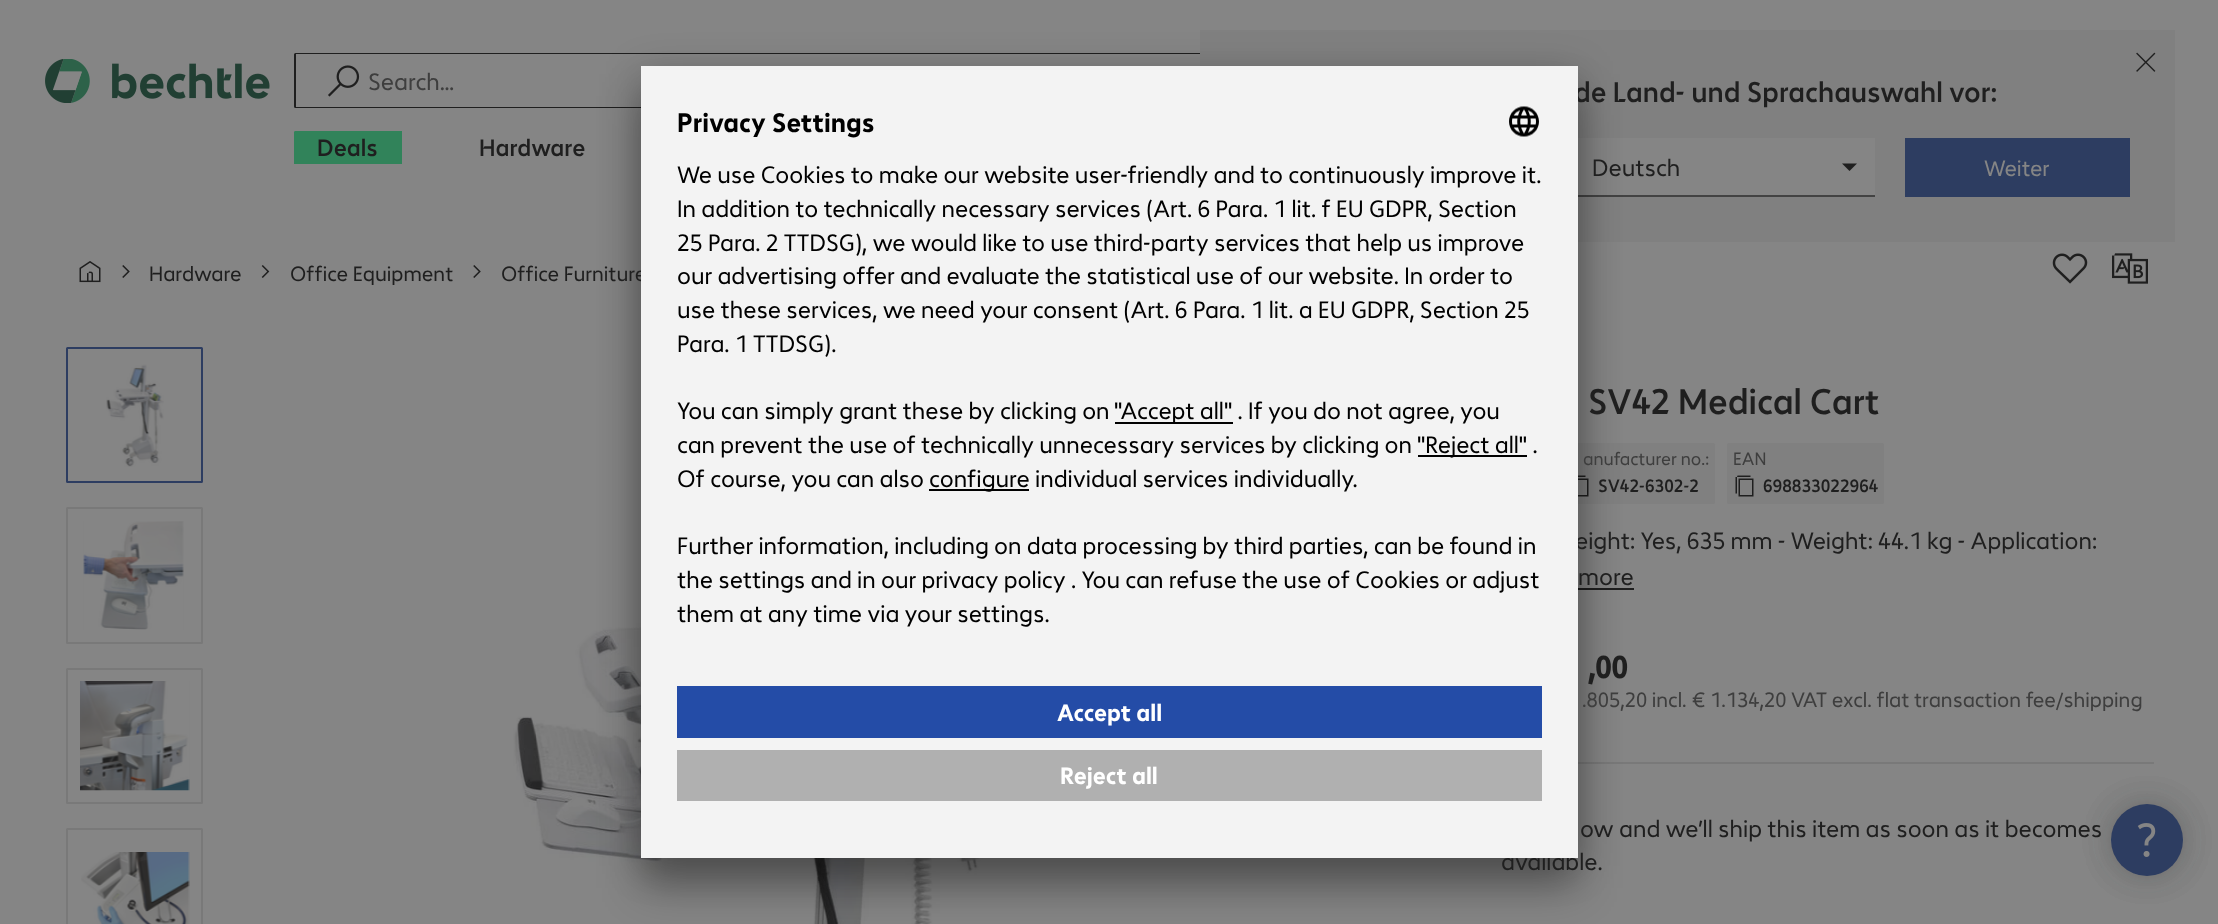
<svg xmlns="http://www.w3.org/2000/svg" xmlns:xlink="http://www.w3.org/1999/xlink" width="2218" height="924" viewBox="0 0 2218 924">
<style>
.cls-1{font:24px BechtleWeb;fill:#3e3e3e}
.cls-2{font:500 24px BechtleWeb;fill:#1f1f1f}
.cls-3{font:500 28.75px BechtleWeb;fill:#1f1f1f}
.cls-4{font:24px BechtleWeb;fill:#1f1f1f}
.cls-5{font:22.5px BechtleWeb;fill:#858585}
.cls-6{font:21px BechtleWeb;fill:#1f1f1f}
.cls-7{font:500 36px BechtleWeb;fill:#1f1f1f}
.cls-8{font:18px BechtleWeb;fill:#3e3e3e}
.cls-9{font:500 18px BechtleWeb;fill:#1f1f1f}
.cls-10{font:bold 32px BechtleWeb;letter-spacing:-1px;fill:#1f1f1f}
.cls-11{font:21px BechtleWeb;fill:#3e3e3e}
.cls-12{font:bold 27px BechtleWeb;fill:#000000}
.cls-13{font:24px BechtleWeb;fill:#000000}
.cls-14{font:bold 24px BechtleWeb;fill:#ffffff}
</style>
<rect width="100%" height="100%" fill="#858585"/>
<image xlink:href="image0.png" x="45" y="59" width="225" height="44"/>
<rect fill="none" stroke="#1f1f1f" stroke-width="2" x="295" y="54" width="1603" height="53" rx="0.5"/>
<rect fill="#858585" x="296" y="54" width="904" height="53"/>
<image xlink:href="image1.png" x="328" y="65" width="32" height="32"/>
<path fill="#31835a" d="M295.5 131H402V164H294V132.5C294 131.5 294.5 131 295.5 131Z"/>
<rect fill="#808080" x="1200" y="30" width="975" height="212"/>
<image xlink:href="image2.png" x="2136" y="52" width="20" height="20"/>
<rect fill="#858585" x="1578" y="138" width="297" height="57"/>
<rect fill="#434343" x="1575" y="195" width="300" height="2"/>
<path fill="#1f1f1f" d="M1842 163.5H1857L1849.5 171Z"/>
<rect fill="#2d3d61" x="1905" y="138" width="225" height="59"/>
<image xlink:href="image3.png" x="79" y="261" width="22" height="22"/>
<image xlink:href="image4.png" x="122" y="265" width="8" height="13"/>
<image xlink:href="image5.png" x="261" y="265" width="9" height="13"/>
<image xlink:href="image4.png" x="473" y="265" width="8" height="13"/>
<image xlink:href="image6.png" x="2052" y="253" width="36" height="31"/>
<image xlink:href="image7.png" x="2112" y="253" width="36" height="31"/>
<rect fill="none" stroke="#2d3d61" stroke-width="2" x="67" y="348" width="135" height="134" rx="0.5"/>
<image xlink:href="image8.png" x="106" y="364" width="58" height="103"/>
<rect fill="none" stroke="#797979" stroke-width="2" x="67" y="508" width="135" height="135" rx="0.5"/>
<image xlink:href="image9.png" x="83" y="521" width="101" height="109"/>
<rect fill="none" stroke="#797979" stroke-width="2" x="67" y="669" width="135" height="134" rx="0.5"/>
<image xlink:href="image10.png" x="80" y="681" width="110" height="110"/>
<rect fill="none" stroke="#797979" stroke-width="2" x="67" y="829" width="135" height="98" rx="0.5"/>
<image xlink:href="image11.png" x="81" y="852" width="109" height="72"/>
<image xlink:href="image12.png" x="513" y="430" width="473" height="494"/>
<rect fill="#808080" x="1562" y="443" width="153" height="61" rx="1.5"/>
<image xlink:href="image13.png" x="1578" y="475" width="11" height="22"/>
<rect fill="#808080" x="1727" y="443" width="157" height="61" rx="1.5"/>
<image xlink:href="image14.png" x="1735" y="475" width="19" height="22"/>
<rect fill="#1f1f1f" x="1578" y="588" width="56" height="2"/>
<rect fill="#797979" x="1578" y="762" width="576" height="2"/>
<rect fill="#1f2523" fill-opacity="0.16" filter="blur(15px)" x="2111" y="804" width="72" height="72" rx="36"/>
<rect fill="#1f2523" fill-opacity="0.16" filter="blur(15px)" x="2111" y="804" width="72" height="72" rx="36"/>
<circle fill="#2d3d61" cx="2147" cy="840" r="36"/>
<image xlink:href="image15.png" x="2137" y="823" width="19" height="34"/>
<rect fill="#000000" fill-opacity="0.3" filter="blur(21px)" x="641" y="96" width="937" height="792"/>
<rect fill="#000000" fill-opacity="0.22" filter="blur(19.5px)" x="641" y="74" width="937" height="792"/>
<text class="cls-1" x="368" y="90">Search…</text>
<text class="cls-2" x="317" y="156">Deals</text>
<text class="cls-2" x="479" y="156">Hardware</text>
<text class="cls-3" x="1574" y="102">de Land- und Sprachauswahl vor:</text>
<text class="cls-4" x="1592" y="176">Deutsch</text>
<text class="cls-5" x="1984" y="176">Weiter</text>
<text class="cls-6" x="149" y="281">Hardware</text>
<text class="cls-6" x="290" y="281">Office Equipment</text>
<text class="cls-6" x="501" y="281">Office Furniture</text>
<text class="cls-7" x="1588" y="414">SV42 Medical Cart</text>
<text class="cls-8" x="1583" y="465">anufacturer no.:</text>
<text class="cls-9" x="1598" y="492">SV42-6302-2</text>
<text class="cls-8" x="1733" y="465">EAN</text>
<text class="cls-9" x="1763" y="492">698833022964</text>
<text class="cls-4" x="1575" y="549">eight: Yes, 635 mm - Weight: 44.1 kg - Application:</text>
<text class="cls-4" x="1578" y="585">more</text>
<text class="cls-10" x="1588" y="678">,00</text>
<text class="cls-11" x="1582" y="707">.805,20 incl. € 1.134,20 VAT excl. flat transaction fee/shipping</text>
<text class="cls-4" x="1580" y="837">ow and we’ll ship this item as soon as it becomes</text>
<text class="cls-4" x="1501" y="870">available.</text>
<rect fill="#f3f3f3" x="641" y="66" width="937" height="792"/>
<text class="cls-12" x="677" y="132">Privacy Settings</text>
<image xlink:href="image16.png" x="1509" y="106" width="30" height="31"/>
<text class="cls-13"><tspan x="677" y="183">We use Cookies to make our website user-friendly and to continuously improve it.</tspan><tspan x="677" y="217">In addition to technically necessary services (Art. 6 Para. 1 lit. f EU GDPR, Section</tspan><tspan x="677" y="251">25 Para. 2 TTDSG), we would like to use third-party services that help us improve</tspan><tspan x="677" y="284">our advertising offer and evaluate the statistical use of our website. In order to</tspan><tspan x="677" y="318">use these services, we need your consent (Art. 6 Para. 1 lit. a EU GDPR, Section 25</tspan><tspan x="677" y="352">Para. 1 TTDSG).</tspan></text>
<text class="cls-13" x="677" y="419">You can simply grant these by clicking on</text>
<rect fill="#000000" x="1115" y="422" width="118" height="2"/>
<text class="cls-13" x="1114" y="419">"Accept all" . If you do not agree, you</text>
<text class="cls-13" x="677" y="453">can prevent the use of technically unnecessary services by clicking on</text>
<rect fill="#000000" x="1418" y="455" width="109" height="2"/>
<text class="cls-13" x="1417" y="453">"Reject all" .</text>
<text class="cls-13" x="677" y="487">Of course, you can also</text>
<rect fill="#000000" x="929" y="489" width="100" height="2"/>
<text class="cls-13" x="929" y="487">configure individual services individually.</text>
<text class="cls-13"><tspan x="677" y="554">Further information, including on data processing by third parties, can be found in</tspan><tspan x="677" y="588">the settings and in our privacy policy . You can refuse the use of Cookies or adjust</tspan><tspan x="677" y="622">them at any time via your settings.</tspan></text>
<rect fill="#244ca7" x="677" y="686" width="865" height="52"/>
<text class="cls-14" x="1057" y="721">Accept all</text>
<rect fill="#b0b0b0" x="677" y="750" width="865" height="51"/>
<text class="cls-14" x="1060" y="784">Reject all</text>
</svg>
